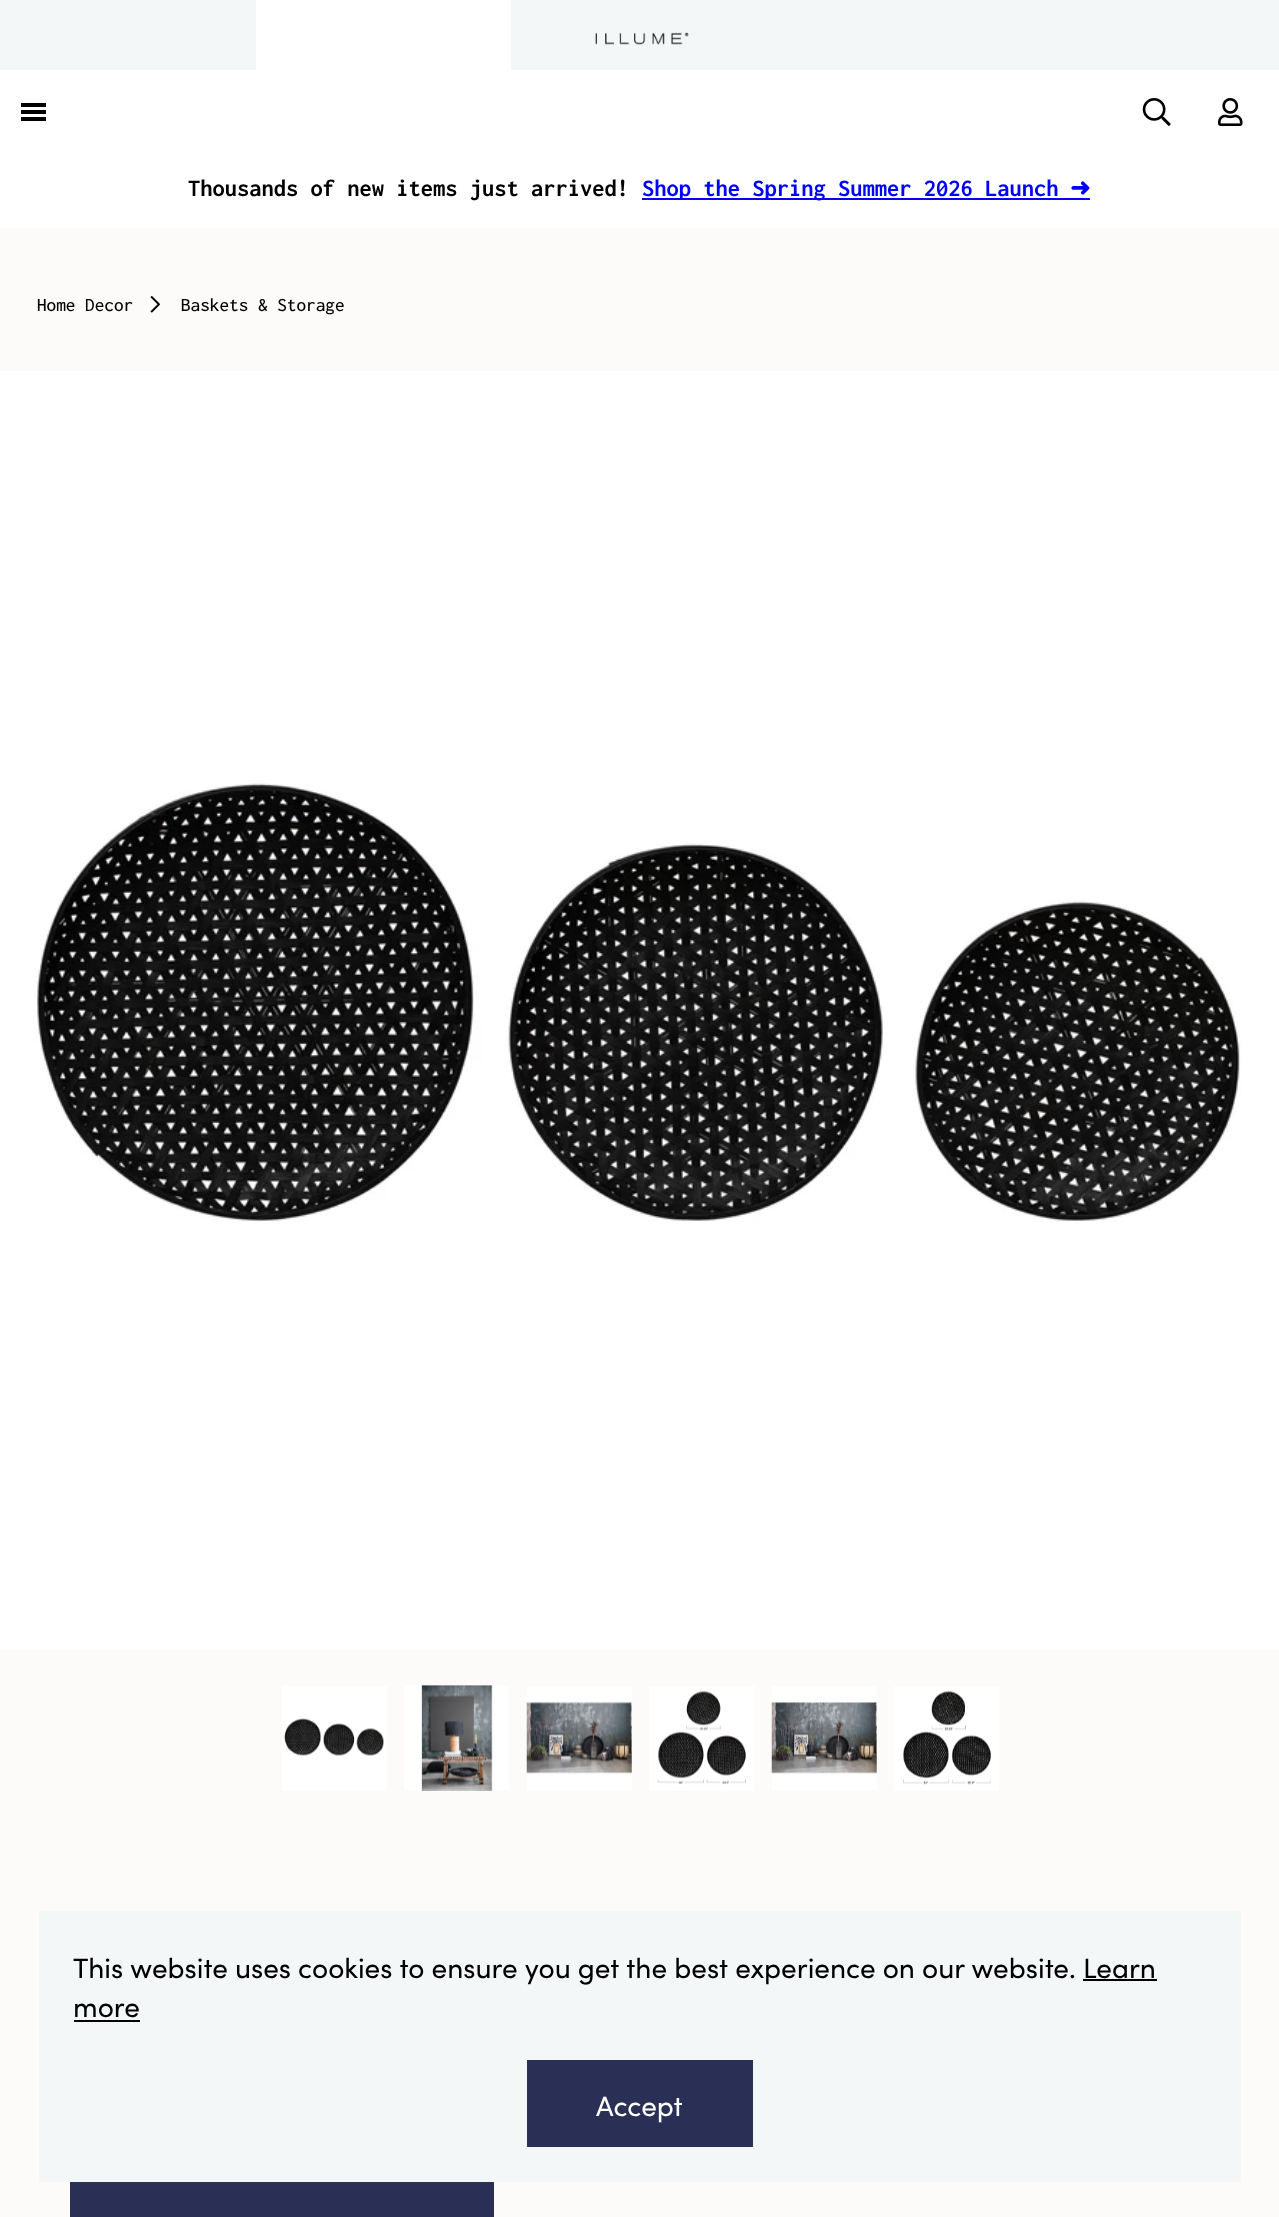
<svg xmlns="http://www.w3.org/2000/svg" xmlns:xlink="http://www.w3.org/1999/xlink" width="1279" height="2217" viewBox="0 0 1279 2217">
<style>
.cls-1{font:bold 24.5px Inconsolata;fill:#000000}
.cls-2{font:bold 24.5px Inconsolata;fill:#0000ff}
.cls-3{font:bold 24.5px DejaVu Sans;fill:#0000ff}
.cls-4{font:500 19.25px Inconsolata;fill:#000000}
.cls-5{font:28px Sofia;fill:#000000}
.cls-6{font:28px Sofia;fill:#ffffff}
</style>
<rect width="100%" height="100%" fill="#fcfbf9"/>
<rect fill="#ffffff" x="0" y="70" width="1279" height="158"/>
<rect fill="#f4f7f7" x="0" y="0" width="1279" height="70"/>
<rect fill="#ffffff" x="256" y="0" width="255" height="70"/>
<image xlink:href="image0.png" x="595" y="32" width="94" height="13"/>
<rect fill="#000000" x="21" y="110" width="25" height="4"/>
<rect fill="#000000" x="21" y="103" width="25" height="4"/>
<rect fill="#000000" x="21" y="117" width="25" height="4"/>
<image xlink:href="image1.png" x="1142" y="98" width="29" height="28"/>
<image xlink:href="image2.png" x="1218" y="98" width="25" height="28"/>
<rect fill="#0000ff" x="642" y="198" width="448" height="2"/>
<image xlink:href="image3.png" x="150" y="296" width="11" height="17"/>
<image xlink:href="image4.png" x="0" y="371" width="1279" height="1279"/>
<image xlink:href="image5.png" x="282" y="1686" width="105" height="105"/>
<image xlink:href="image6.png" x="404" y="1685" width="105" height="106"/>
<image xlink:href="image7.png" x="526" y="1686" width="106" height="105"/>
<image xlink:href="image8.png" x="649" y="1686" width="105" height="105"/>
<image xlink:href="image9.png" x="771" y="1686" width="106" height="105"/>
<image xlink:href="image10.png" x="894" y="1686" width="105" height="105"/>
<rect fill="#2a2f56" x="70" y="2182" width="424" height="35"/>
<rect fill="#f4f7f7" x="39" y="1911" width="1202" height="271"/>
<rect fill="#000000" x="1083" y="1979" width="74" height="2"/>
<rect fill="#000000" x="74" y="2020" width="66" height="2"/>
<rect fill="#2a2f56" x="527" y="2060" width="226" height="87"/>
<text class="cls-1" x="188" y="196">Thousands of new items just arrived!</text>
<text class="cls-2" x="642" y="196">Shop the Spring Summer 2026 Launch</text>
<text class="cls-3" x="1070" y="196">➜</text>
<text class="cls-4" x="37" y="311">Home Decor</text>
<text class="cls-4" x="181" y="311">Baskets &amp; Storage</text>
<text class="cls-5"><tspan x="73" y="1978">This website uses cookies to ensure you get the best experience on our website. Learn</tspan><tspan x="73" y="2017">more</tspan></text>
<text class="cls-6" x="596" y="2116">Accept</text>
</svg>
